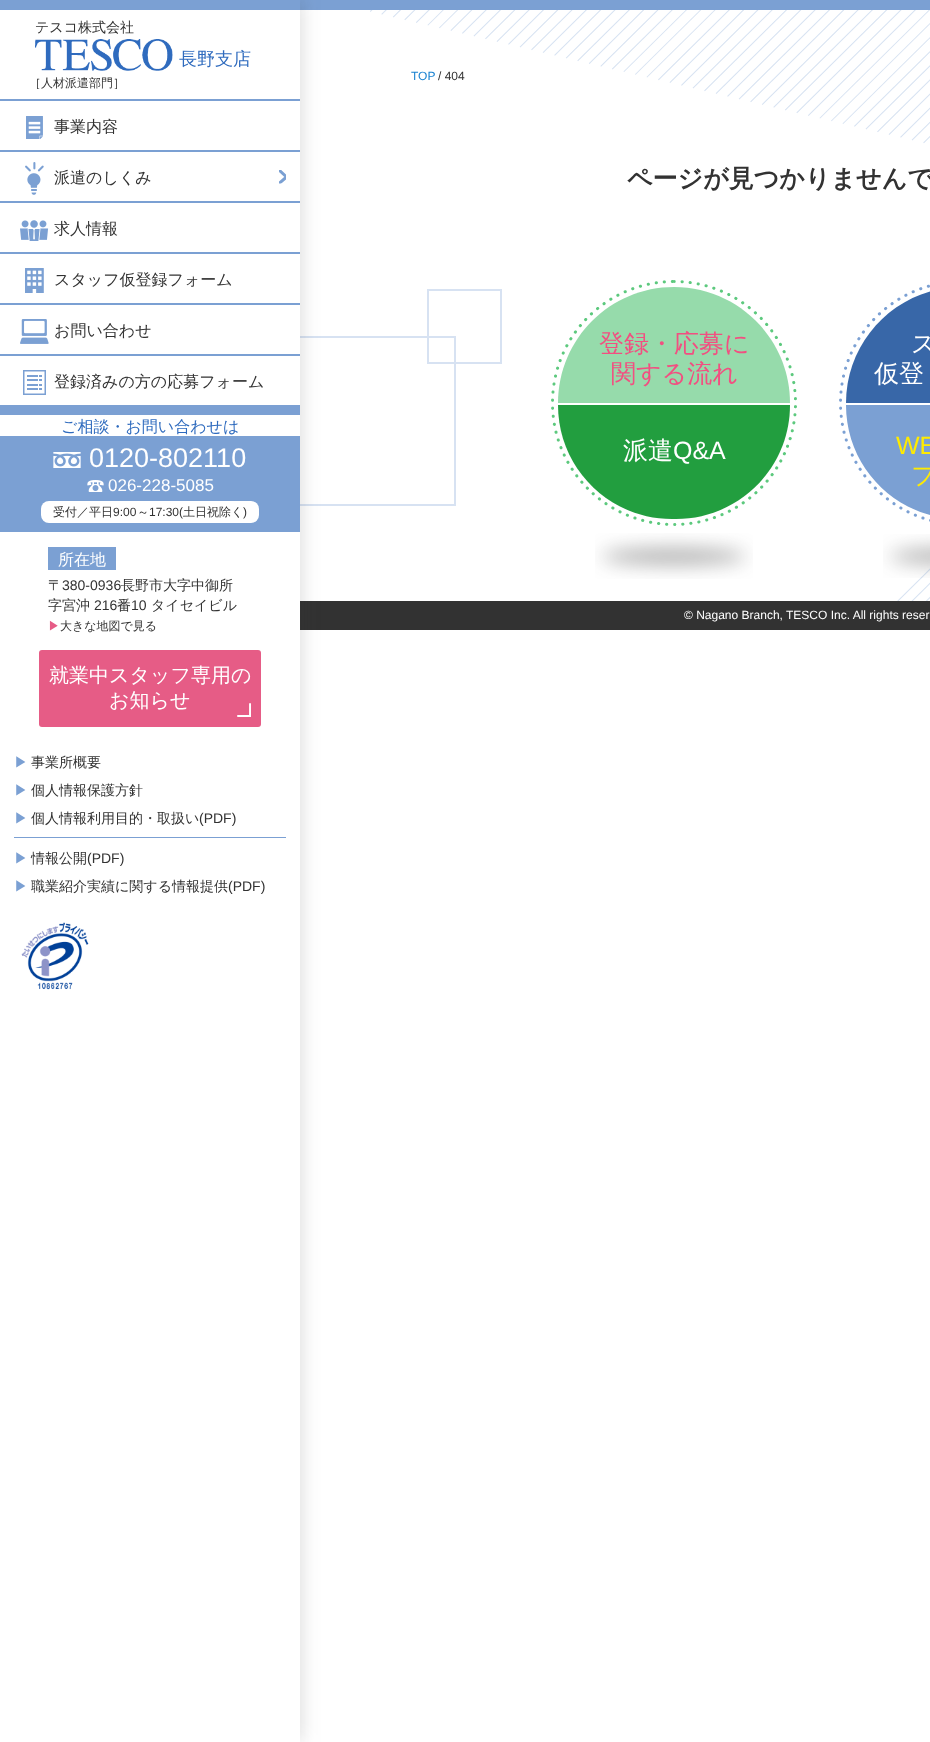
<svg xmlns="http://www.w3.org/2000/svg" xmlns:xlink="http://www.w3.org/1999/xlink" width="930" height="1742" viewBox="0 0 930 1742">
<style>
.cls-1{font:500 14px WenQuanYi Zen Hei;fill:#323232}
.cls-2{font:500 18px WenQuanYi Zen Hei;fill:#2f6bbe}
.cls-3{font:500 12px WenQuanYi Zen Hei;fill:#323232}
.cls-4{font:500 16px WenQuanYi Zen Hei;fill:#323232}
.cls-5{font:500 16px WenQuanYi Zen Hei;fill:#2f6bbe}
.cls-6{font:27px Liberation Sans;fill:#ffffff}
.cls-7{font:17px Liberation Sans;fill:#ffffff}
.cls-8{font:12px Liberation Sans;fill:#323232}
.cls-9{font:500 16px WenQuanYi Zen Hei;fill:#ffffff}
.cls-10{font:14px Liberation Sans;fill:#323232}
.cls-11{font:500 12px WenQuanYi Zen Hei;fill:#e65c86}
.cls-12{font:500 20px WenQuanYi Zen Hei;fill:#ffffff}
.cls-13{font:500 14px WenQuanYi Zen Hei;fill:#7ba0d3}
.cls-14{font:12px Liberation Sans;fill:#1982d1}
.cls-15{font:bold 25px WenQuanYi Zen Hei;fill:#323232}
.cls-16{font:500 25px WenQuanYi Zen Hei;fill:#f24f81}
.cls-17{font:500 25px WenQuanYi Zen Hei;fill:#ffffff}
.cls-18{font:25px Liberation Sans;fill:#ffffff}
.cls-19{font:25px Liberation Sans;fill:#ffeb00}
.cls-20{font:500 25px WenQuanYi Zen Hei;fill:#ffeb00}
.cls-21{font:12px Liberation Sans;fill:#ffffff}
</style>
<defs>
<clipPath id="clip1"><path d="M286 170V183.5H279V170Z"/></clipPath>
<clipPath id="clip2"><path d="M674 287C738 287 790 339 790 403H558C558 339 610 287 674 287Z"/></clipPath>
<clipPath id="clip3"><path d="M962 287C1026 287 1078 339 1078 403H846C846 339 898 287 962 287Z"/></clipPath>
</defs>
<rect width="100%" height="100%" fill="#ffffff"/>
<image xlink:href="image0.png" x="370" y="10" width="560" height="591"/>
<rect fill="#7ba0d3" x="300" y="0" width="630" height="10"/>
<image xlink:href="image12.png" x="300" y="289" width="202" height="217"/>
<rect fill="#323232" x="300" y="601" width="630" height="29"/>
<rect fill="#323232" fill-opacity="0.2" filter="blur(10px)" x="0" y="0" width="300" height="1742"/>
<rect fill="#ffffff" x="0" y="10" width="300" height="1732"/>
<rect fill="#7ba0d3" x="0" y="0" width="300" height="10"/>
<image xlink:href="image1.png" x="35" y="39" width="138" height="32"/>
<rect fill="#7ba0d3" x="0" y="99" width="300" height="2"/>
<image xlink:href="image2.png" x="26" y="116" width="17" height="23"/>
<rect fill="#7ba0d3" x="0" y="150" width="300" height="2"/>
<image xlink:href="image3.png" x="25" y="162" width="19" height="33"/>
<g clip-path="url(#clip1)">
<path fill="none" stroke="#7ba0d3" stroke-width="3" stroke-linecap="round" stroke-linejoin="round" d="M279 183.5L286.5 177L279 170"/>
</g>
<rect fill="#7ba0d3" x="0" y="201" width="300" height="2"/>
<image xlink:href="image4.png" x="20" y="220" width="29" height="21"/>
<rect fill="#7ba0d3" x="0" y="252" width="300" height="2"/>
<image xlink:href="image5.png" x="25" y="268" width="19" height="25"/>
<rect fill="#7ba0d3" x="0" y="303" width="300" height="2"/>
<image xlink:href="image6.png" x="20" y="319" width="29" height="25"/>
<rect fill="#7ba0d3" x="0" y="354" width="300" height="2"/>
<image xlink:href="image7.png" x="23" y="370" width="23" height="25"/>
<rect fill="#7ba0d3" x="0" y="405" width="300" height="127"/>
<rect fill="#ffffff" x="0" y="415" width="300" height="21"/>
<image xlink:href="image8.png" x="53" y="452" width="28" height="16"/>
<image xlink:href="image9.png" x="87" y="480" width="17" height="12"/>
<rect fill="#ffffff" x="41" y="501" width="218" height="22" rx="8"/>
<rect fill="#7ba0d3" x="48" y="547" width="68" height="23"/>
<rect fill="#e65c86" x="39" y="650" width="222" height="77" rx="3"/>
<image xlink:href="image10.png" x="237" y="703" width="14" height="14"/>
<rect fill="#7ba0d3" x="14" y="837" width="272" height="1"/>
<image xlink:href="image11.png" x="21" y="922" width="68" height="68"/>
<image xlink:href="image13.png" x="551" y="280" width="246" height="246"/>
<g clip-path="url(#clip2)">
<rect fill="#96dbab" x="558" y="287" width="232" height="116"/>
</g>
<path fill="#229e3f" d="M558 405H790C790 468 739 519 676 519H672C609 519 558 468 558 405Z"/>
<image xlink:href="image14.png" x="595" y="533" width="158" height="46"/>
<image xlink:href="image15.png" x="839" y="284" width="91" height="238"/>
<g clip-path="url(#clip3)">
<rect fill="#3867a8" x="846" y="291" width="84" height="112"/>
</g>
<path fill="#7ba0d3" d="M846 405H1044C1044 468 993 519 930 519H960C897 519 846 468 846 405Z"/>
<image xlink:href="image16.png" x="883" y="534" width="47" height="44"/>
<text class="cls-1" x="35" y="32">テスコ株式会社</text>
<text class="cls-2" x="179" y="65">長野支店</text>
<text class="cls-3" x="29" y="87">［人材派遣部門］</text>
<text class="cls-4" x="54" y="132">事業内容</text>
<text class="cls-4" x="54" y="183">派遣のしくみ</text>
<text class="cls-4" x="54" y="234">求人情報</text>
<text class="cls-4" x="54" y="285">スタッフ仮登録フォーム</text>
<text class="cls-4" x="54" y="336">お問い合わせ</text>
<text class="cls-4" x="54" y="387">登録済みの方の応募フォーム</text>
<text class="cls-5" x="61" y="432">ご相談・お問い合わせは</text>
<text class="cls-6" x="89" y="467">0120-802110</text>
<text class="cls-7" x="108" y="491">026-228-5085</text>
<text class="cls-3" x="53" y="516">受付／平日</text>
<text class="cls-8" x="113" y="516">9:00</text>
<text class="cls-3" x="137" y="516">～</text>
<text class="cls-8" x="149" y="516">17:30(</text>
<text class="cls-3" x="183" y="516">土日祝除く</text>
<text class="cls-8" x="243" y="516">)</text>
<text class="cls-9" x="58" y="565">所在地</text>
<text class="cls-1" x="48" y="590">〒</text>
<text class="cls-10" x="62" y="590">380-0936</text>
<text class="cls-1" x="121" y="590">長野市大字中御所</text>
<text class="cls-1" x="48" y="610">字宮沖</text>
<text class="cls-10" x="94" y="610">216</text>
<text class="cls-1" x="117" y="610">番</text>
<text class="cls-10" x="131" y="610">10</text>
<text class="cls-1" x="151" y="610">タイセイビル</text>
<text class="cls-11" x="48" y="630">▶</text>
<text class="cls-3" x="60" y="630">大きな地図で見る</text>
<text class="cls-12" x="49" y="682">就業中スタッフ専用の</text>
<text class="cls-12" x="109" y="707">お知らせ</text>
<text class="cls-13" x="14" y="767">▶</text>
<text class="cls-1" x="31" y="767">事業所概要</text>
<text class="cls-13" x="14" y="795">▶</text>
<text class="cls-1" x="31" y="795">個人情報保護方針</text>
<text class="cls-13" x="14" y="823">▶</text>
<text class="cls-1" x="31" y="823">個人情報利用目的・取扱い</text>
<text class="cls-10" x="199" y="823">(PDF)</text>
<text class="cls-13" x="14" y="863">▶</text>
<text class="cls-1" x="31" y="863">情報公開</text>
<text class="cls-10" x="87" y="863">(PDF)</text>
<text class="cls-13" x="14" y="891">▶</text>
<text class="cls-1" x="31" y="891">職業紹介実績に関する情報提供</text>
<text class="cls-10" x="228" y="891">(PDF)</text>
<text class="cls-14" x="411" y="80">TOP</text>
<text class="cls-8" x="438" y="80">/ 404</text>
<text class="cls-15" x="627" y="187">ページが見つかりませんで</text>
<text class="cls-16" x="599" y="352">登録・応募に</text>
<text class="cls-16" x="611" y="382">関する流れ</text>
<text class="cls-17" x="623" y="459">派遣</text>
<text class="cls-18" x="673" y="459">Q&amp;A</text>
<text class="cls-17" x="911" y="352">ス</text>
<text class="cls-17" x="874" y="382">仮登</text>
<text class="cls-19" x="896" y="454">WE</text>
<text class="cls-20" x="911" y="484">フ</text>
<text class="cls-21" x="684" y="619">© Nagano Branch, TESCO Inc. All rights reser</text>
</svg>
